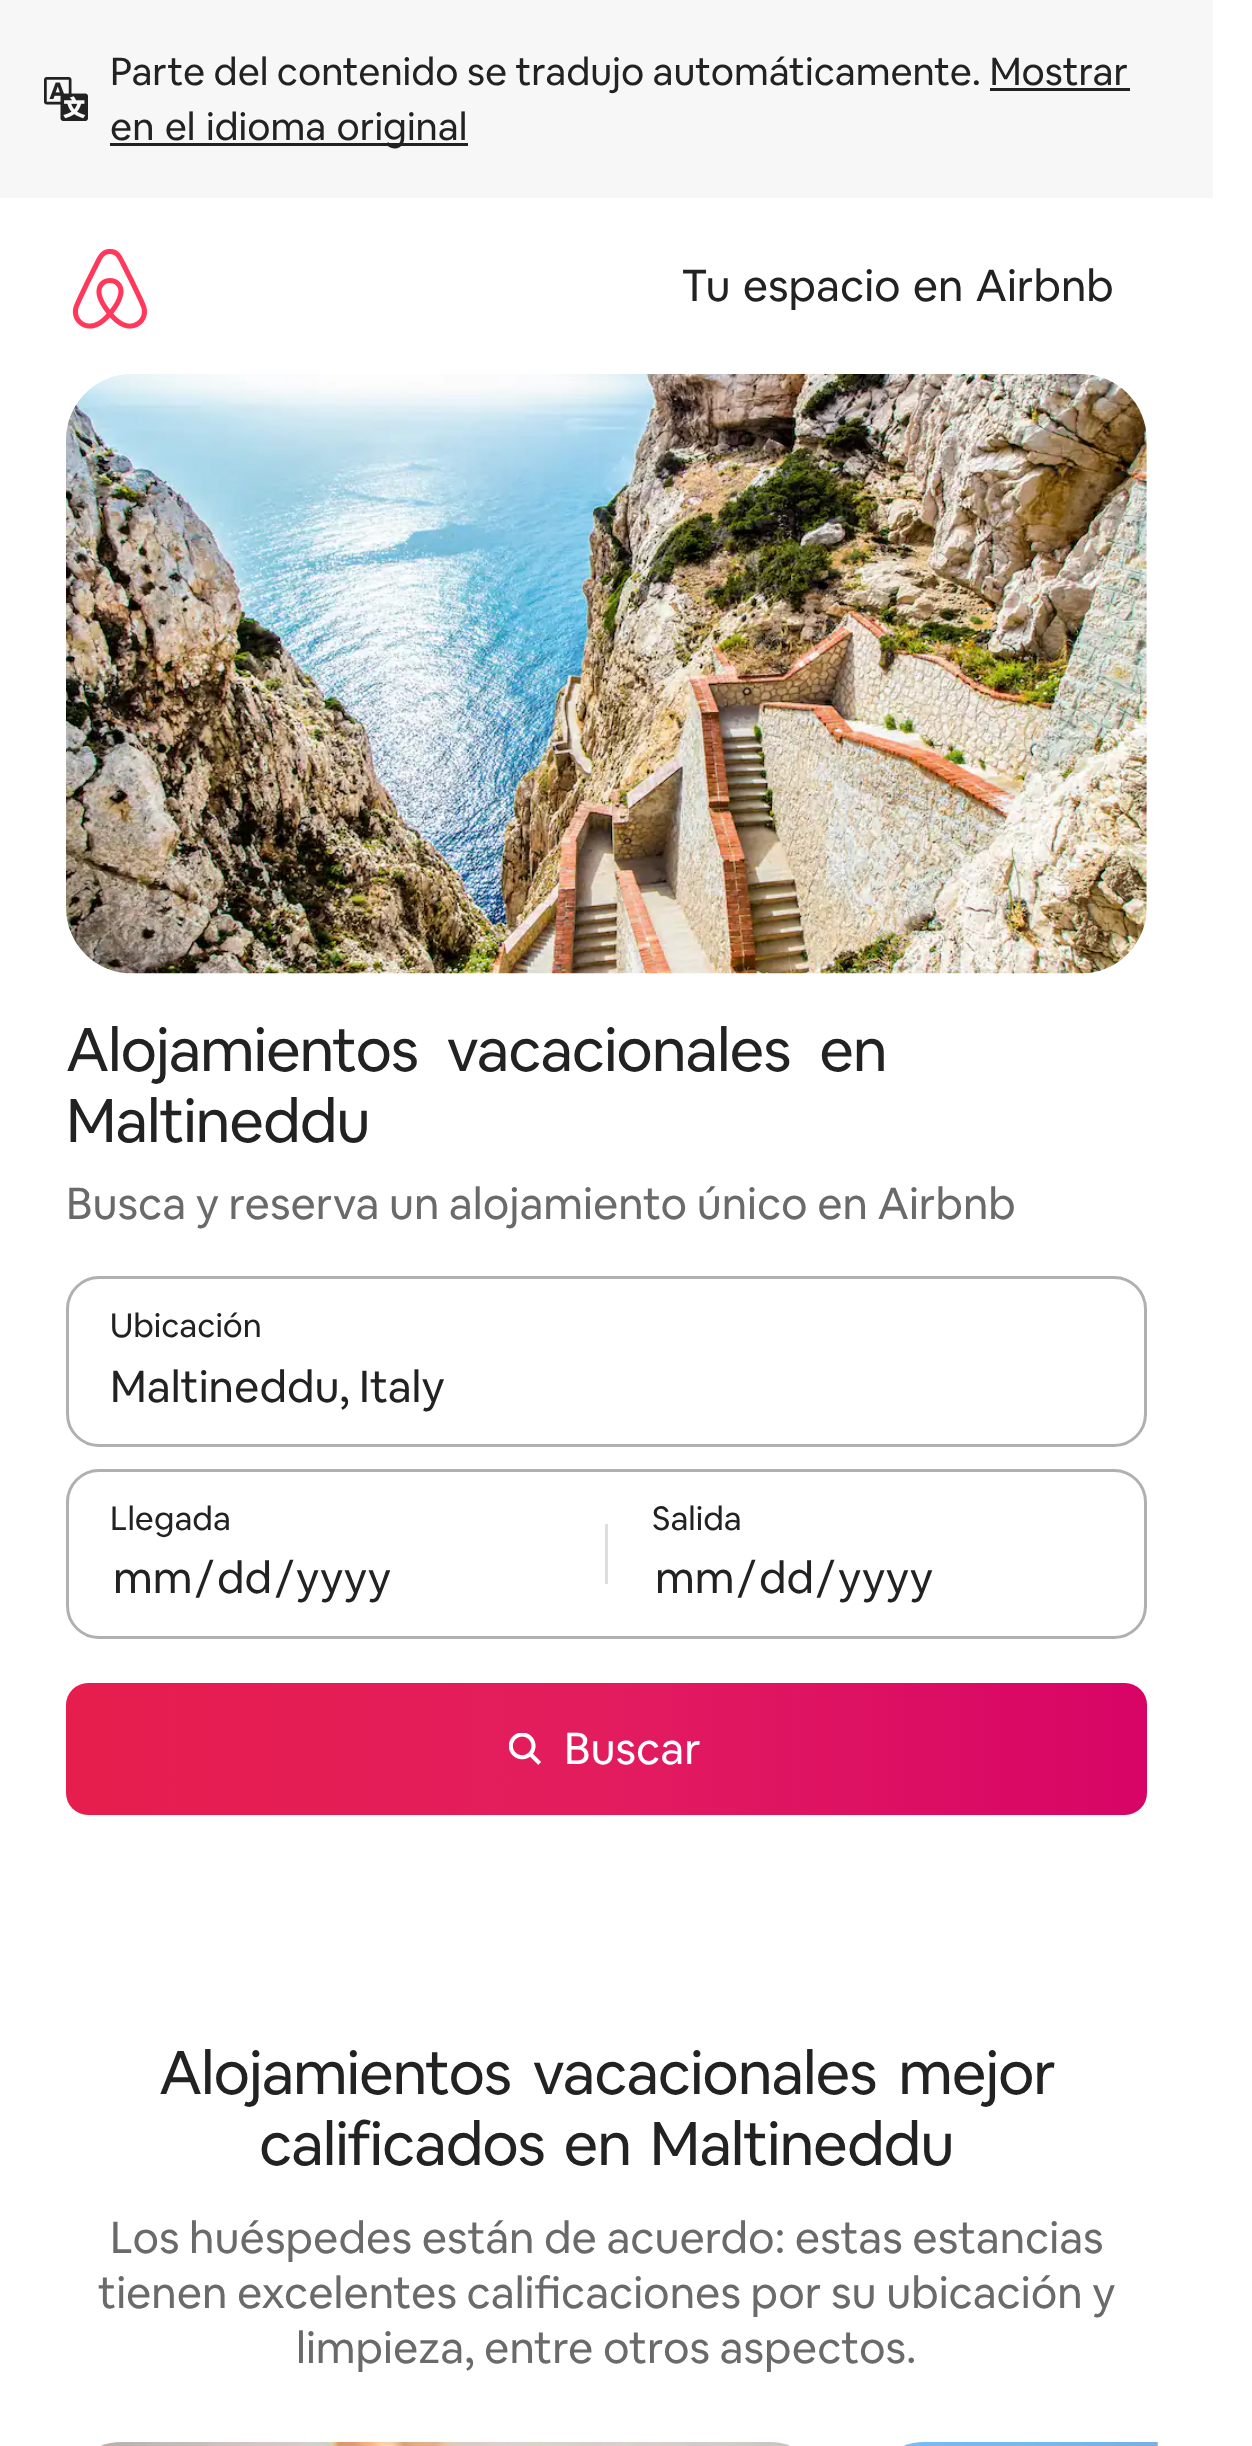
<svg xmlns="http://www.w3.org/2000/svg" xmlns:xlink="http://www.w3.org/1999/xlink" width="1252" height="2446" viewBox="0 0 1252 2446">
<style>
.cls-1{font:38.5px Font;fill:#222222}
.cls-2{font:44px Font;fill:#222222}
.cls-3{font:60.5px Font;letter-spacing:-1.2px;fill:#222222}
.cls-4{font:44px Font;fill:#6a6a6a}
.cls-5{font:33px Font;fill:#222222}
.cls-6{font:44px Font;fill:#ffffff}
</style>
<defs>
<linearGradient id="g1" gradientUnits="userSpaceOnUse" x1="66" y1="1749" x2="1147" y2="1749"><stop offset="0" stop-color="#e61e4d"/><stop offset="0.5" stop-color="#e31c5f"/><stop offset="1" stop-color="#d70466"/></linearGradient>
</defs>
<rect width="100%" height="100%" fill="#ffffff"/>
<rect fill="#f7f7f7" x="0" y="0" width="1213" height="198"/>
<image xlink:href="image0.png" x="44" y="77" width="44" height="44"/>
<rect fill="#222222" x="990" y="88" width="140" height="3"/>
<rect fill="#222222" x="110" y="143" width="358" height="3"/>
<image xlink:href="image1.png" x="72" y="248" width="75" height="81"/>
<image xlink:href="image2.png" x="66" y="374" width="1081" height="600"/>
<rect fill="none" stroke="#b0b0b0" stroke-width="3" x="67.5" y="1277.5" width="1078" height="168" rx="31.5"/>
<rect fill="none" stroke="#b0b0b0" stroke-width="3" x="67.5" y="1470.5" width="1078" height="167" rx="31.5"/>
<rect fill="#dddddd" x="605" y="1524" width="3" height="60"/>
<rect fill="url(#g1)" x="66" y="1683" width="1081" height="132" rx="22"/>
<image xlink:href="image3.png" x="509" y="1733" width="32" height="32"/>
<image xlink:href="image4.png" x="101" y="2442" width="689" height="4"/>
<image xlink:href="image5.png" x="903" y="2442" width="255" height="4"/>
<text class="cls-1"><tspan x="110" y="85">Parte del contenido se tradujo automáticamente. Mostrar</tspan><tspan x="110" y="140" word-spacing="2">en el idioma original</tspan></text>
<text class="cls-2" x="681" y="301" word-spacing="2.5">Tu espacio en Airbnb</text>
<text class="cls-3"><tspan x="66" y="1071" word-spacing="17">Alojamientos vacacionales en</tspan><tspan x="66" y="1142">Maltineddu</tspan></text>
<text class="cls-4" x="66" y="1219">Busca y reserva un alojamiento único en Airbnb</text>
<text class="cls-5" x="110" y="1337">Ubicación</text>
<text class="cls-2" x="110" y="1402">Maltineddu, Italy</text>
<text class="cls-5" x="110" y="1530">Llegada</text>
<text class="cls-2" x="113" y="1593">mm</text>
<text class="cls-2" x="195" y="1593">/</text>
<text class="cls-2" x="217" y="1593">dd</text>
<text class="cls-2" x="275" y="1593">/</text>
<text class="cls-2" x="296" y="1593">yyyy</text>
<text class="cls-5" x="652" y="1530">Salida</text>
<text class="cls-2" x="655" y="1593">mm</text>
<text class="cls-2" x="737" y="1593">/</text>
<text class="cls-2" x="759" y="1593">dd</text>
<text class="cls-2" x="816" y="1593">/</text>
<text class="cls-2" x="838" y="1593">yyyy</text>
<text class="cls-6" x="564" y="1764">Buscar</text>
<text class="cls-3" x="159" y="2094" word-spacing="10">Alojamientos vacacionales mejor</text>
<text class="cls-3" x="259" y="2165" word-spacing="7">calificados en Maltineddu</text>
<text class="cls-4" x="110" y="2253">Los huéspedes están de acuerdo: estas estancias</text>
<text class="cls-4" x="98" y="2308">tienen excelentes calificaciones por su ubicación y</text>
<text class="cls-4" x="296" y="2363">limpieza, entre otros aspectos.</text>
</svg>
